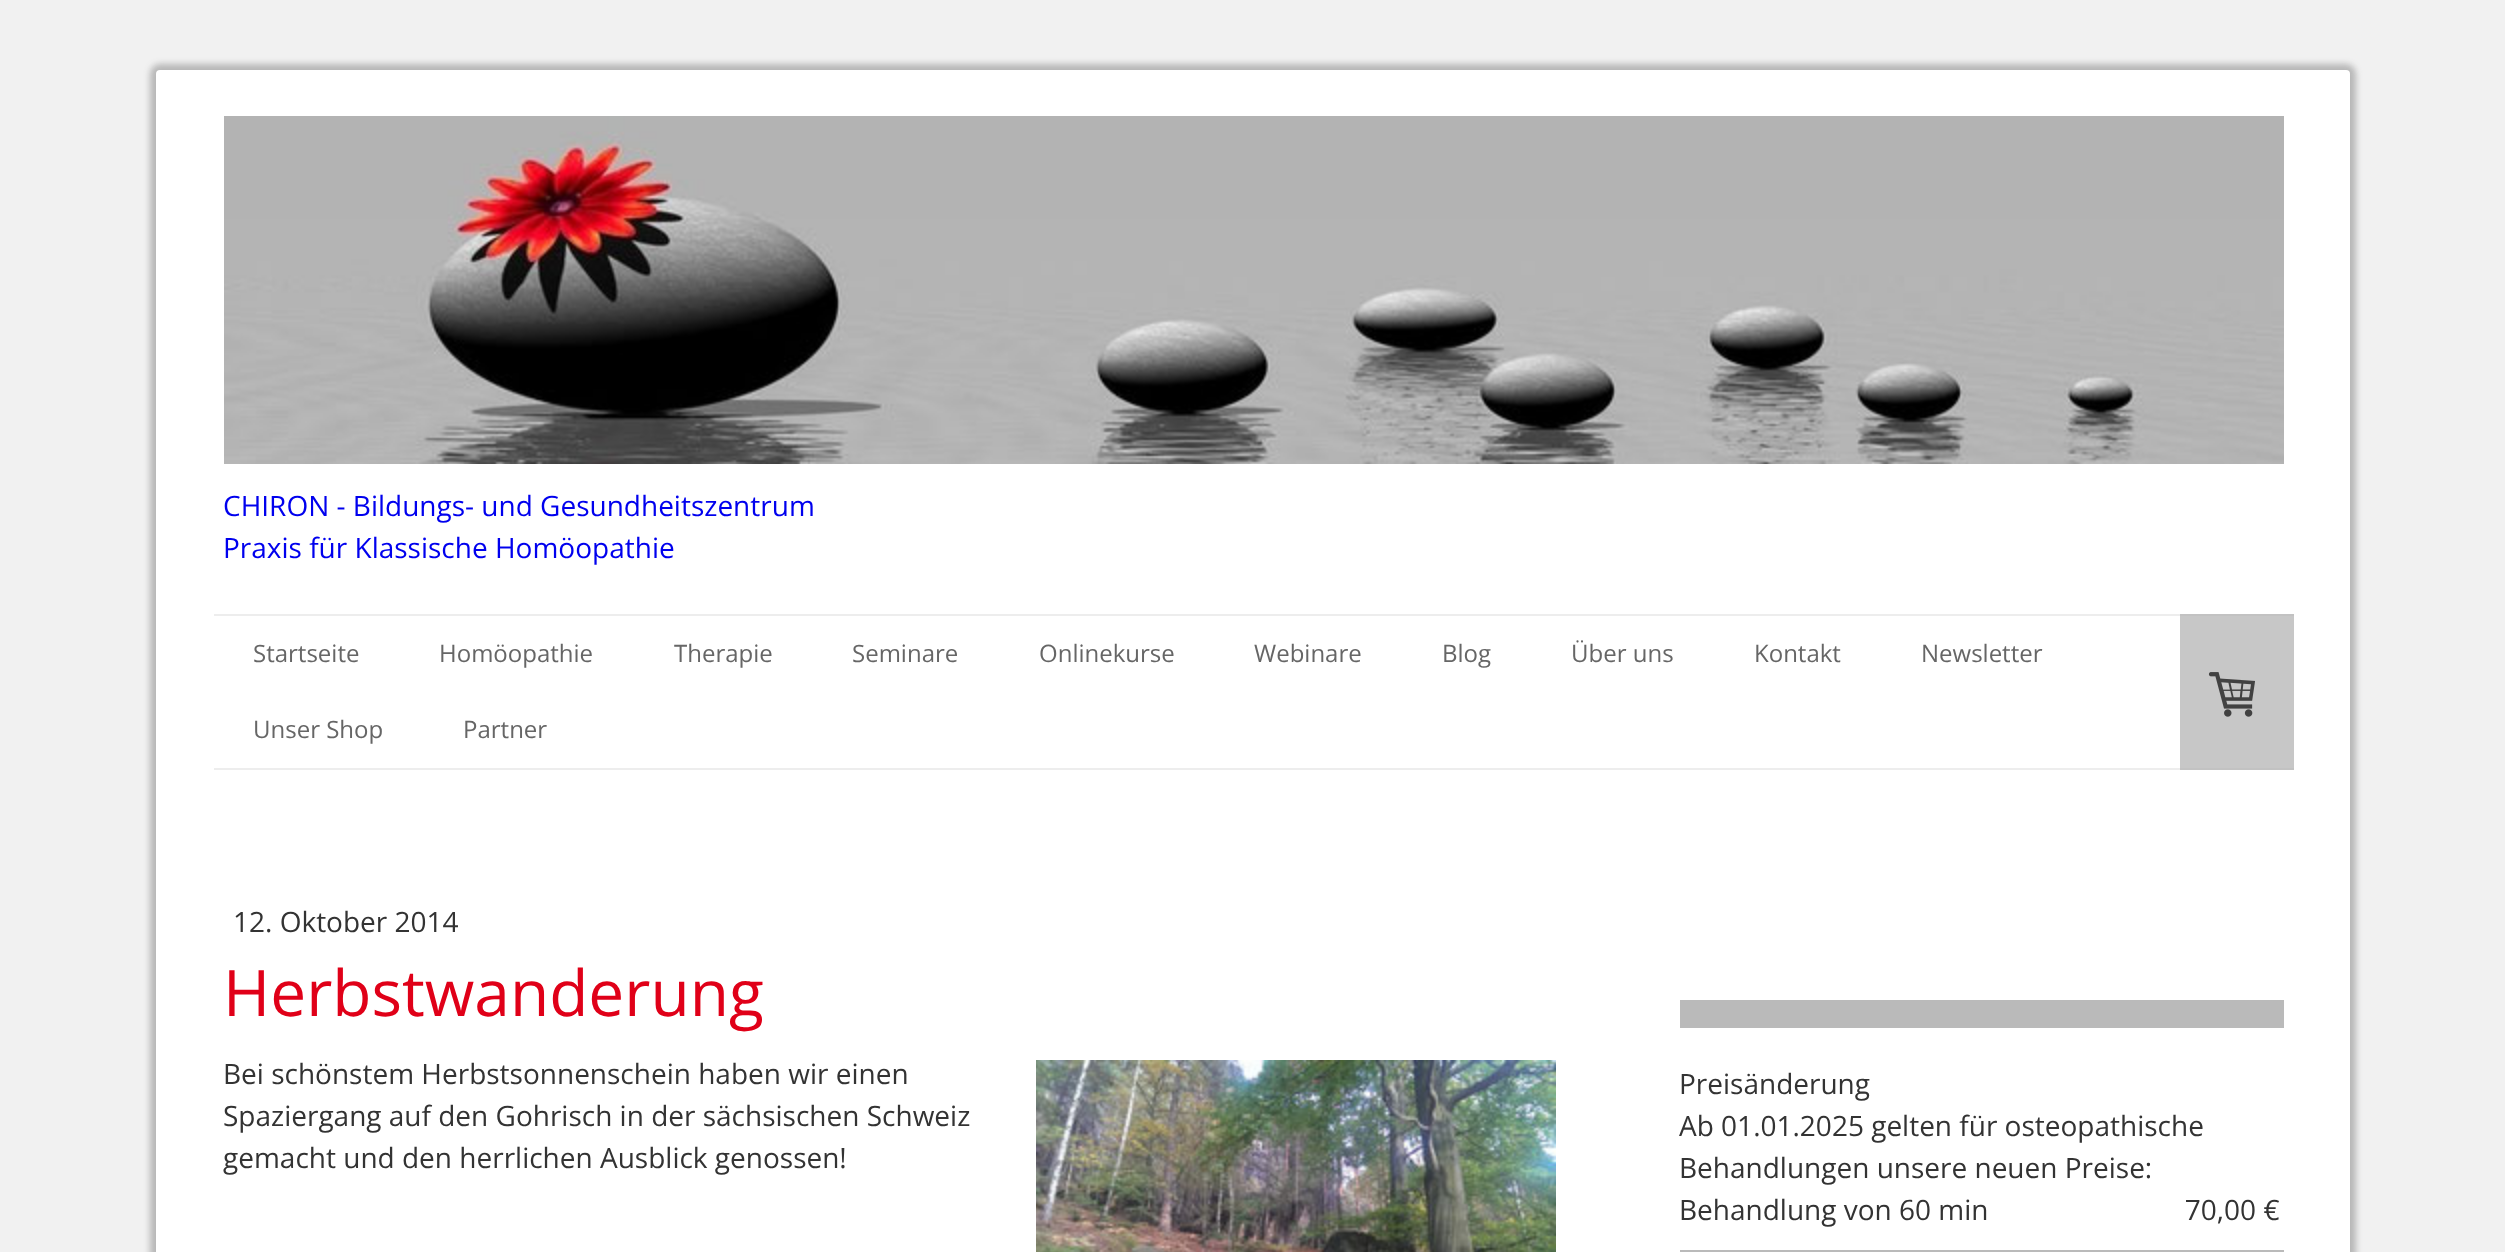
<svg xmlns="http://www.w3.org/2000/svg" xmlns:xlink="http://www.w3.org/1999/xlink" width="2505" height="1252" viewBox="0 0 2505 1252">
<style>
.cls-1{font:28px Open Sans;fill:#0000ee}
.cls-2{font:24px Open Sans;fill:#666666}
.cls-3{font:28px Open Sans;fill:#333333}
.cls-4{font:64px Open Sans;fill:#e00018}
</style>
<rect width="100%" height="100%" fill="#f1f1f1"/>
<rect fill="#333333" fill-opacity="0.3" filter="blur(3px)" x="150" y="64" width="2206" height="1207" rx="10"/>
<rect fill="#ffffff" x="156" y="70" width="2194" height="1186" rx="4"/>
<rect fill="#c7c7c7" x="2180" y="616" width="114" height="152"/>
<image xlink:href="image0.png" x="224" y="116" width="2060" height="348"/>
<rect fill="#ededed" x="214" y="614" width="1966" height="2"/>
<rect fill="#c2c2c2" x="2180" y="614" width="114" height="2"/>
<rect fill="#ededed" x="214" y="768" width="1966" height="2"/>
<rect fill="#c2c2c2" x="2180" y="768" width="114" height="2"/>
<image xlink:href="image1.png" x="2208" y="672" width="47" height="45"/>
<image xlink:href="image2.png" x="1036" y="1060" width="520" height="192"/>
<rect fill="#bababa" x="1680" y="1000" width="604" height="28"/>
<rect fill="#bababa" x="1680" y="1250" width="604" height="2"/>
<text class="cls-1"><tspan x="223" y="516">CHIRON - Bildungs- und Gesundheitszentrum</tspan><tspan x="223" y="558">Praxis für Klassische Homöopathie</tspan></text>
<text class="cls-2" x="253" y="662">Startseite</text>
<text class="cls-2" x="439" y="662">Homöopathie</text>
<text class="cls-2" x="674" y="662">Therapie</text>
<text class="cls-2" x="852" y="662">Seminare</text>
<text class="cls-2" x="1039" y="662">Onlinekurse</text>
<text class="cls-2" x="1254" y="662">Webinare</text>
<text class="cls-2" x="1442" y="662">Blog</text>
<text class="cls-2" x="1571" y="662">Über uns</text>
<text class="cls-2" x="1754" y="662">Kontakt</text>
<text class="cls-2" x="1921" y="662">Newsletter</text>
<text class="cls-2" x="253" y="738">Unser Shop</text>
<text class="cls-2" x="463" y="738">Partner</text>
<text class="cls-3" x="233" y="932">12. Oktober 2014</text>
<text class="cls-4" x="223" y="1016">Herbstwanderung</text>
<text class="cls-3"><tspan x="223" y="1084">Bei schönstem Herbstsonnenschein haben wir einen</tspan><tspan x="223" y="1126">Spaziergang auf den Gohrisch in der sächsischen Schweiz</tspan><tspan x="223" y="1168">gemacht und den herrlichen Ausblick genossen!</tspan></text>
<text class="cls-3" xml:space="preserve"><tspan x="1679" y="1094">Preisänderung</tspan><tspan x="1679" y="1136">Ab 01.01.2025 gelten für osteopathische</tspan><tspan x="1679" y="1178">Behandlungen unsere neuen Preise:</tspan><tspan x="1679" y="1220">Behandlung von 60 min                           70,00 €</tspan></text>
</svg>
